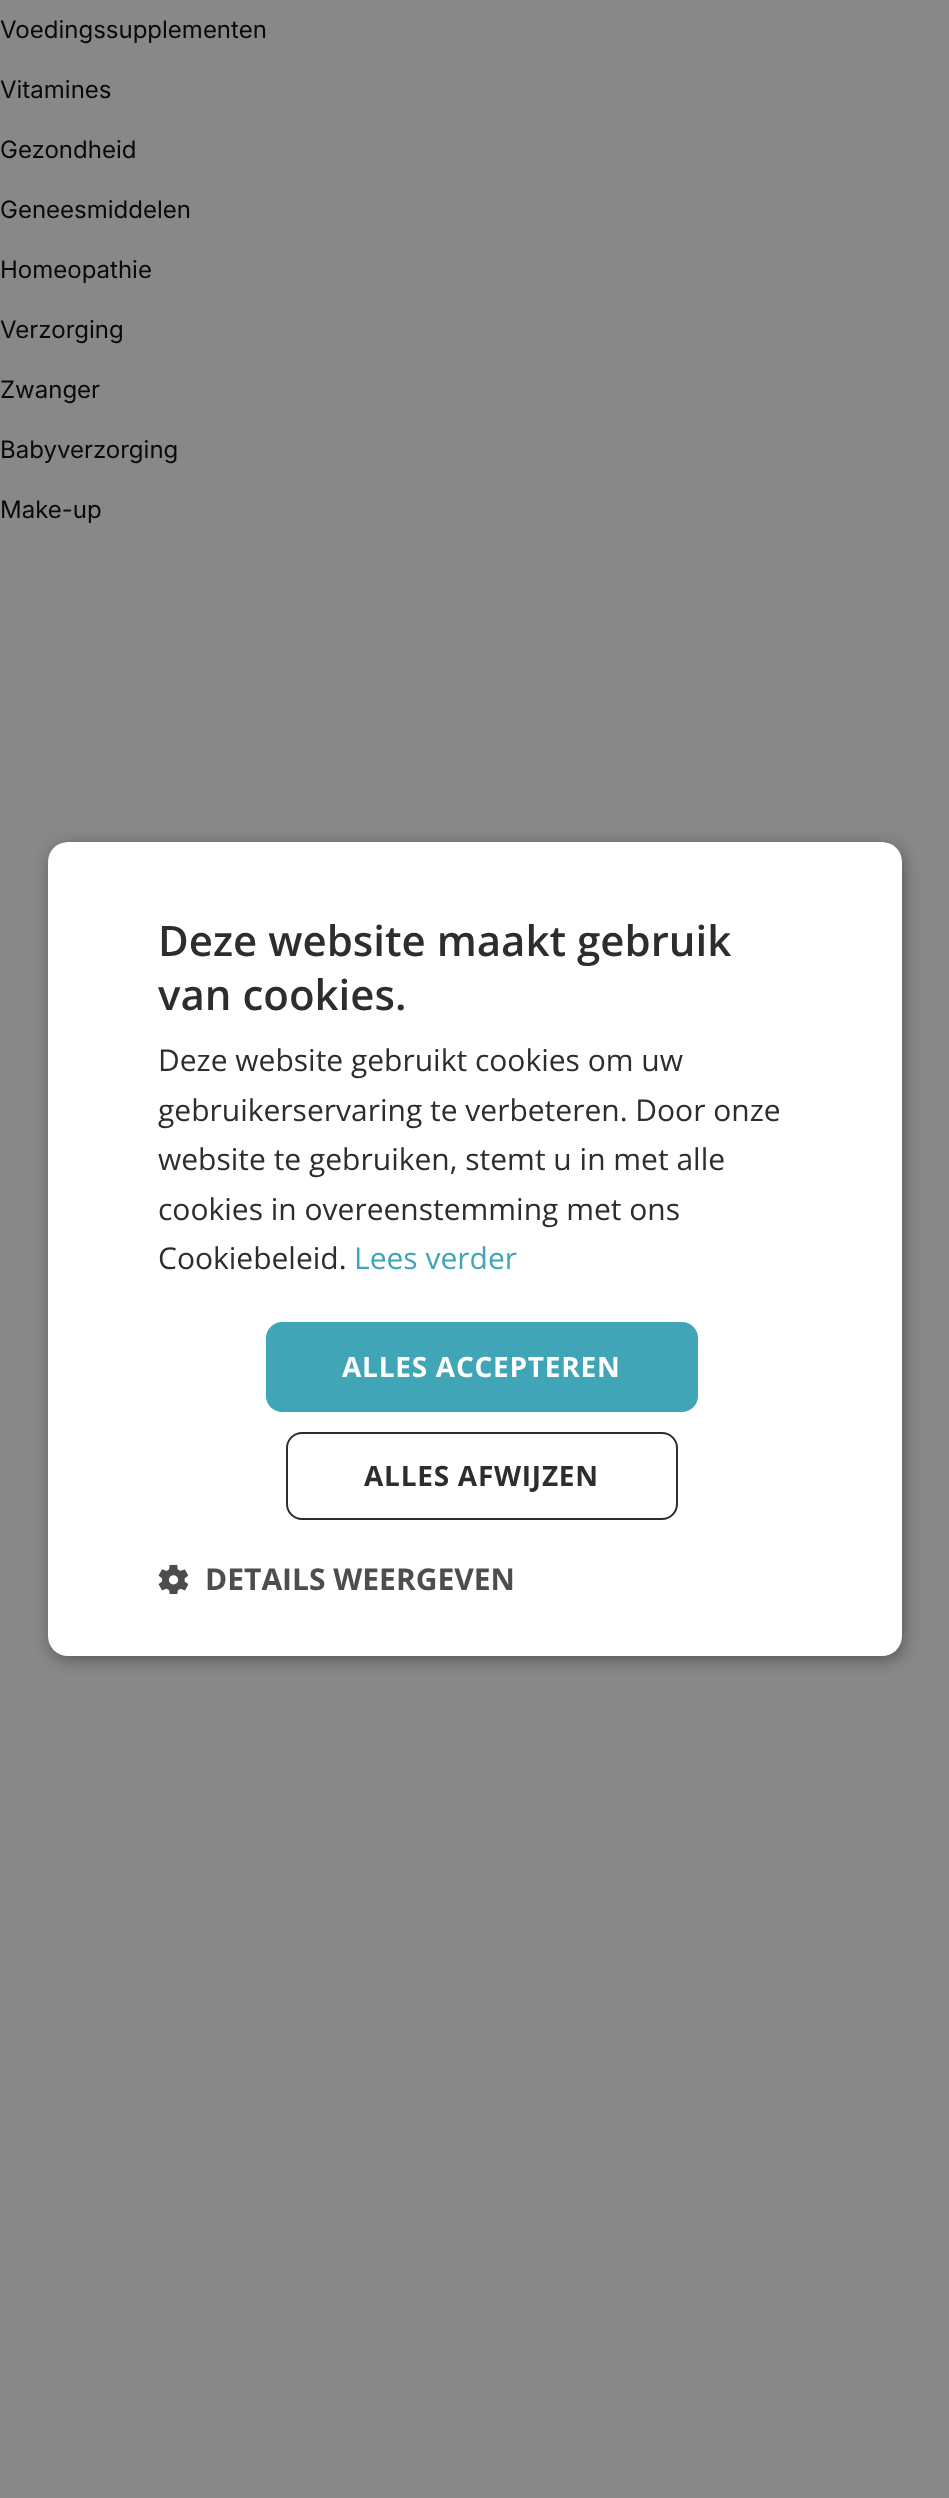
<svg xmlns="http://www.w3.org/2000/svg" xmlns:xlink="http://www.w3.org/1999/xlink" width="949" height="2498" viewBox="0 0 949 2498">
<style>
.cls-1{font:24px Inter;fill:#090909}
.cls-2{font:600 42px Open Sans;fill:#2d2d2d}
.cls-3{font:30px Open Sans;fill:#2d2d2d}
.cls-4{font:30px Open Sans;fill:#40a5b7}
.cls-5{font:bold 28px Open Sans;letter-spacing:0.75px;fill:#ffffff}
.cls-6{font:bold 28px Open Sans;letter-spacing:0.75px;fill:#2d2d2d}
.cls-7{font:bold 30px Open Sans;fill:#4d4d4d}
</style>
<rect width="100%" height="100%" fill="#888888"/>
<rect fill="#000000" fill-opacity="0.35" filter="blur(8px)" x="50" y="846" width="854" height="814" rx="20"/>
<rect fill="#ffffff" x="48" y="842" width="854" height="814" rx="20"/>
<rect fill="#40a5b7" x="266" y="1322" width="432" height="90" rx="16"/>
<rect fill="none" stroke="#2d2d2d" stroke-width="2" x="287" y="1433" width="390" height="86" rx="15"/>
<image xlink:href="image0.png" x="158" y="1564" width="30" height="30"/>
<text class="cls-1" x="0" y="38">Voedingssupplementen</text>
<text class="cls-1" x="0" y="98">Vitamines</text>
<text class="cls-1" x="0" y="158">Gezondheid</text>
<text class="cls-1" x="0" y="218">Geneesmiddelen</text>
<text class="cls-1" x="0" y="278">Homeopathie</text>
<text class="cls-1" x="0" y="338">Verzorging</text>
<text class="cls-1" x="0" y="398">Zwanger</text>
<text class="cls-1" x="0" y="458">Babyverzorging</text>
<text class="cls-1" x="0" y="518">Make-up</text>
<text class="cls-2"><tspan x="158" y="956">Deze website maakt gebruik</tspan><tspan x="158" y="1010">van cookies.</tspan></text>
<text class="cls-3"><tspan x="158" y="1071">Deze website gebruikt cookies om uw</tspan><tspan x="158" y="1121">gebruikerservaring te verbeteren. Door onze</tspan><tspan x="158" y="1170">website te gebruiken, stemt u in met alle</tspan><tspan x="158" y="1220">cookies in overeenstemming met ons</tspan><tspan x="158" y="1269">Cookiebeleid.</tspan></text>
<text class="cls-4" x="354" y="1269">Lees verder</text>
<text class="cls-5" x="342" y="1377">ALLES ACCEPTEREN</text>
<text class="cls-6" x="364" y="1486">ALLES AFWIJZEN</text>
<text class="cls-7" x="205" y="1590">DETAILS WEERGEVEN</text>
</svg>
